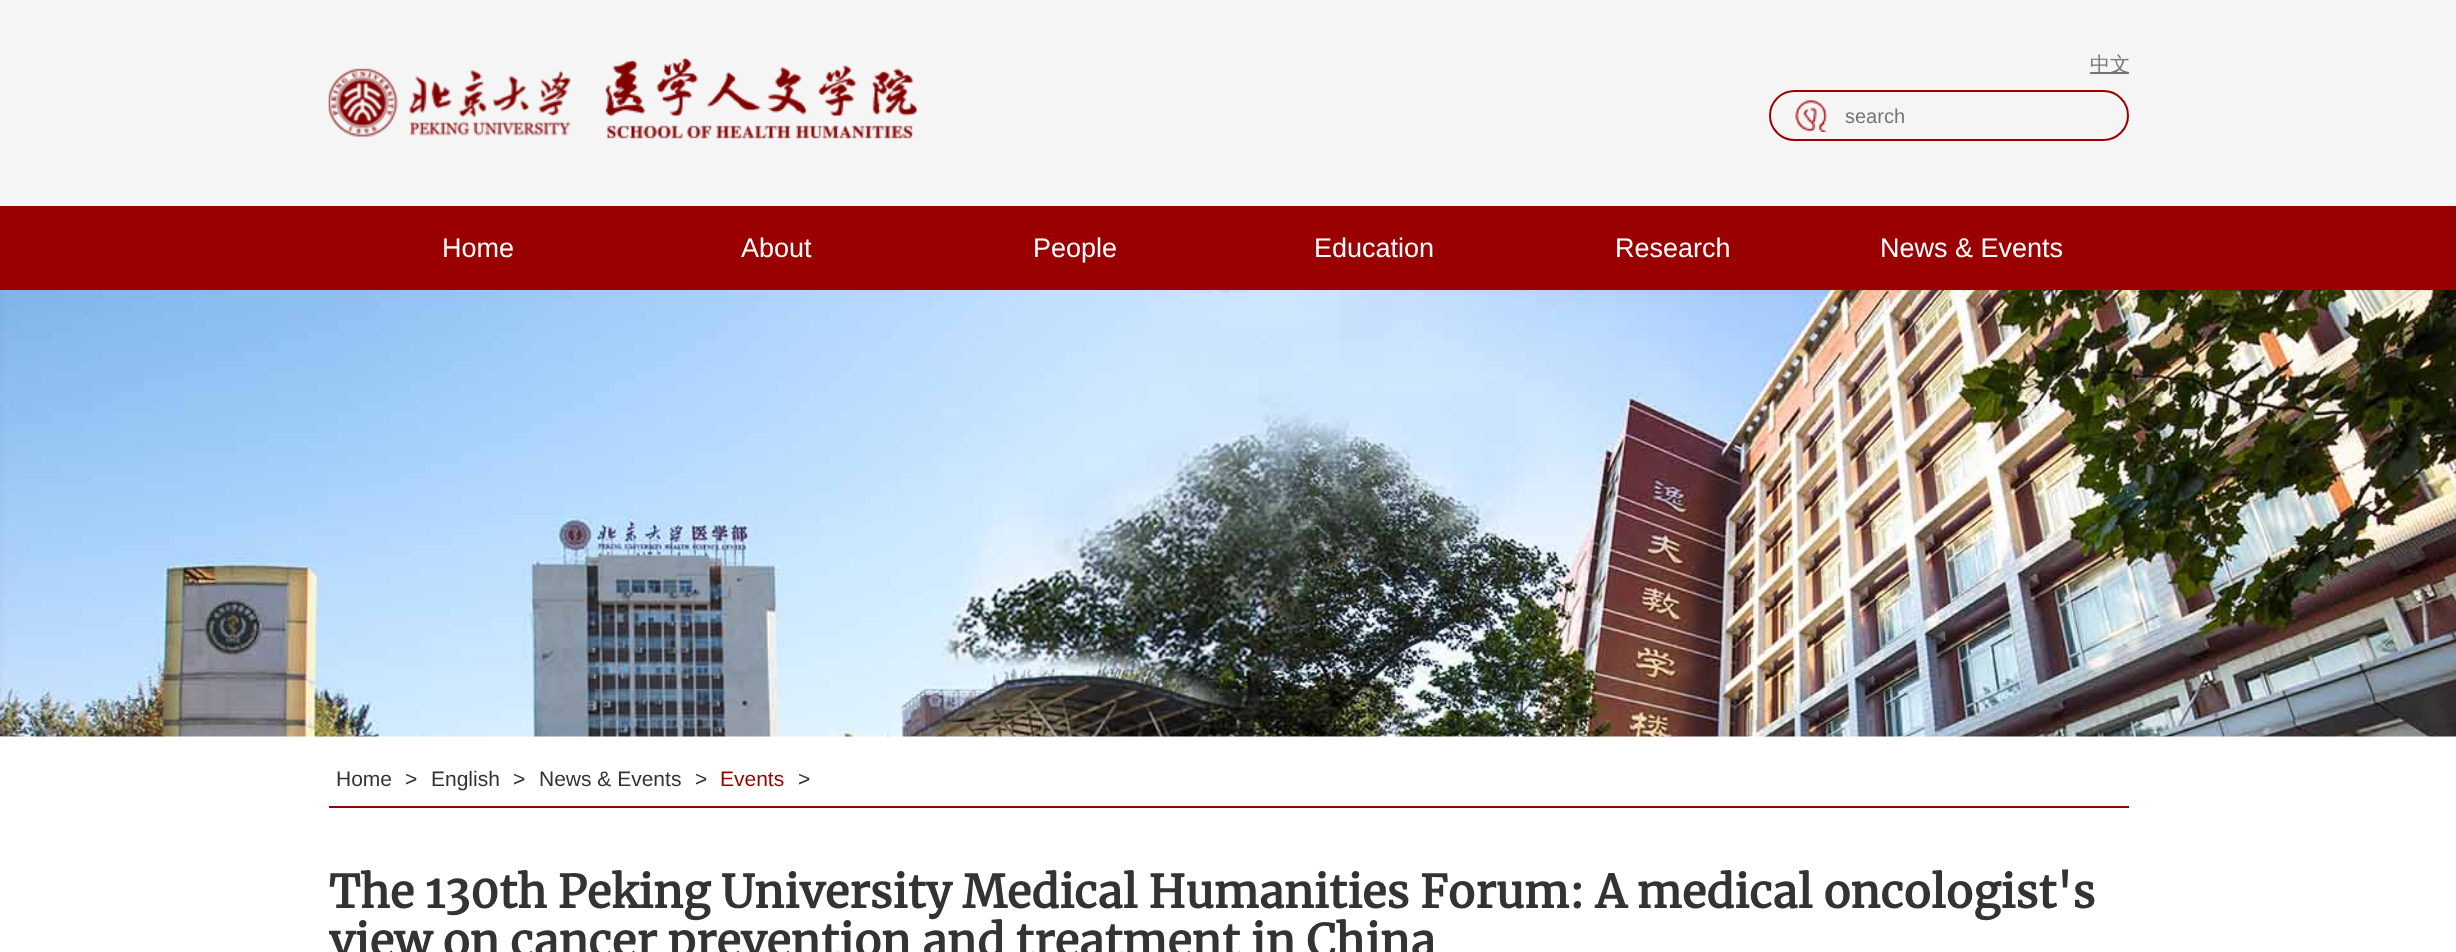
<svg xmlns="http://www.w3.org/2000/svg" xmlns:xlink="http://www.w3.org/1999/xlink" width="2456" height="952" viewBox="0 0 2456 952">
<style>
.cls-1{font:20px Liberation Sans;fill:#757575}
.cls-2{font:500 20px WenQuanYi Zen Hei;fill:#757575}
.cls-3{font:27px Liberation Sans;fill:#ffffff}
.cls-4{font:21px Liberation Sans;fill:#333333}
.cls-5{font:21px Liberation Sans;fill:#9a0000}
.cls-6{font:bold 45px Merriweather;fill:#333333}
</style>
<defs>
<clipPath id="clip1"><rect x="329" y="845" width="1800" height="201"/></clipPath>
</defs>
<rect width="100%" height="100%" fill="#ffffff"/>
<rect fill="#f5f5f5" x="0" y="0" width="2456" height="206"/>
<image xlink:href="image0.png" x="328" y="58" width="589" height="81"/>
<rect fill="none" stroke="#9a0000" stroke-width="2" x="1770" y="91" width="358" height="49" rx="24.5"/>
<image xlink:href="image1.png" x="1795" y="99" width="33" height="33"/>
<rect fill="#757575" x="2090" y="72" width="39" height="2"/>
<rect fill="#9a0000" x="0" y="206" width="2456" height="84"/>
<image xlink:href="image2.png" x="0" y="290" width="2456" height="447"/>
<rect fill="#9a0000" x="329" y="806" width="1800" height="2"/>
<text class="cls-1" x="1845" y="123">search</text>
<text class="cls-2" x="2090" y="71">中文</text>
<text class="cls-3" x="442" y="257">Home</text>
<text class="cls-3" x="741" y="257">About</text>
<text class="cls-3" x="1033" y="257">People</text>
<text class="cls-3" x="1314" y="257">Education</text>
<text class="cls-3" x="1615" y="257">Research</text>
<text class="cls-3" x="1880" y="257">News &amp; Events</text>
<text class="cls-4" x="336" y="786">Home</text>
<text class="cls-4" x="405" y="786">&gt;</text>
<text class="cls-4" x="431" y="786">English</text>
<text class="cls-4" x="513" y="786">&gt;</text>
<text class="cls-4" x="539" y="786">News &amp; Events</text>
<text class="cls-4" x="695" y="786">&gt;</text>
<text class="cls-5" x="720" y="786">Events</text>
<text class="cls-4" x="798" y="786">&gt;</text>
<text class="cls-6" x="329" y="908">The 130th Peking University Medical Humanities Forum: A medical oncologist's</text>
<g clip-path="url(#clip1)">
<text class="cls-6" x="329" y="957">view on cancer prevention and treatment in China</text>
</g>
</svg>
